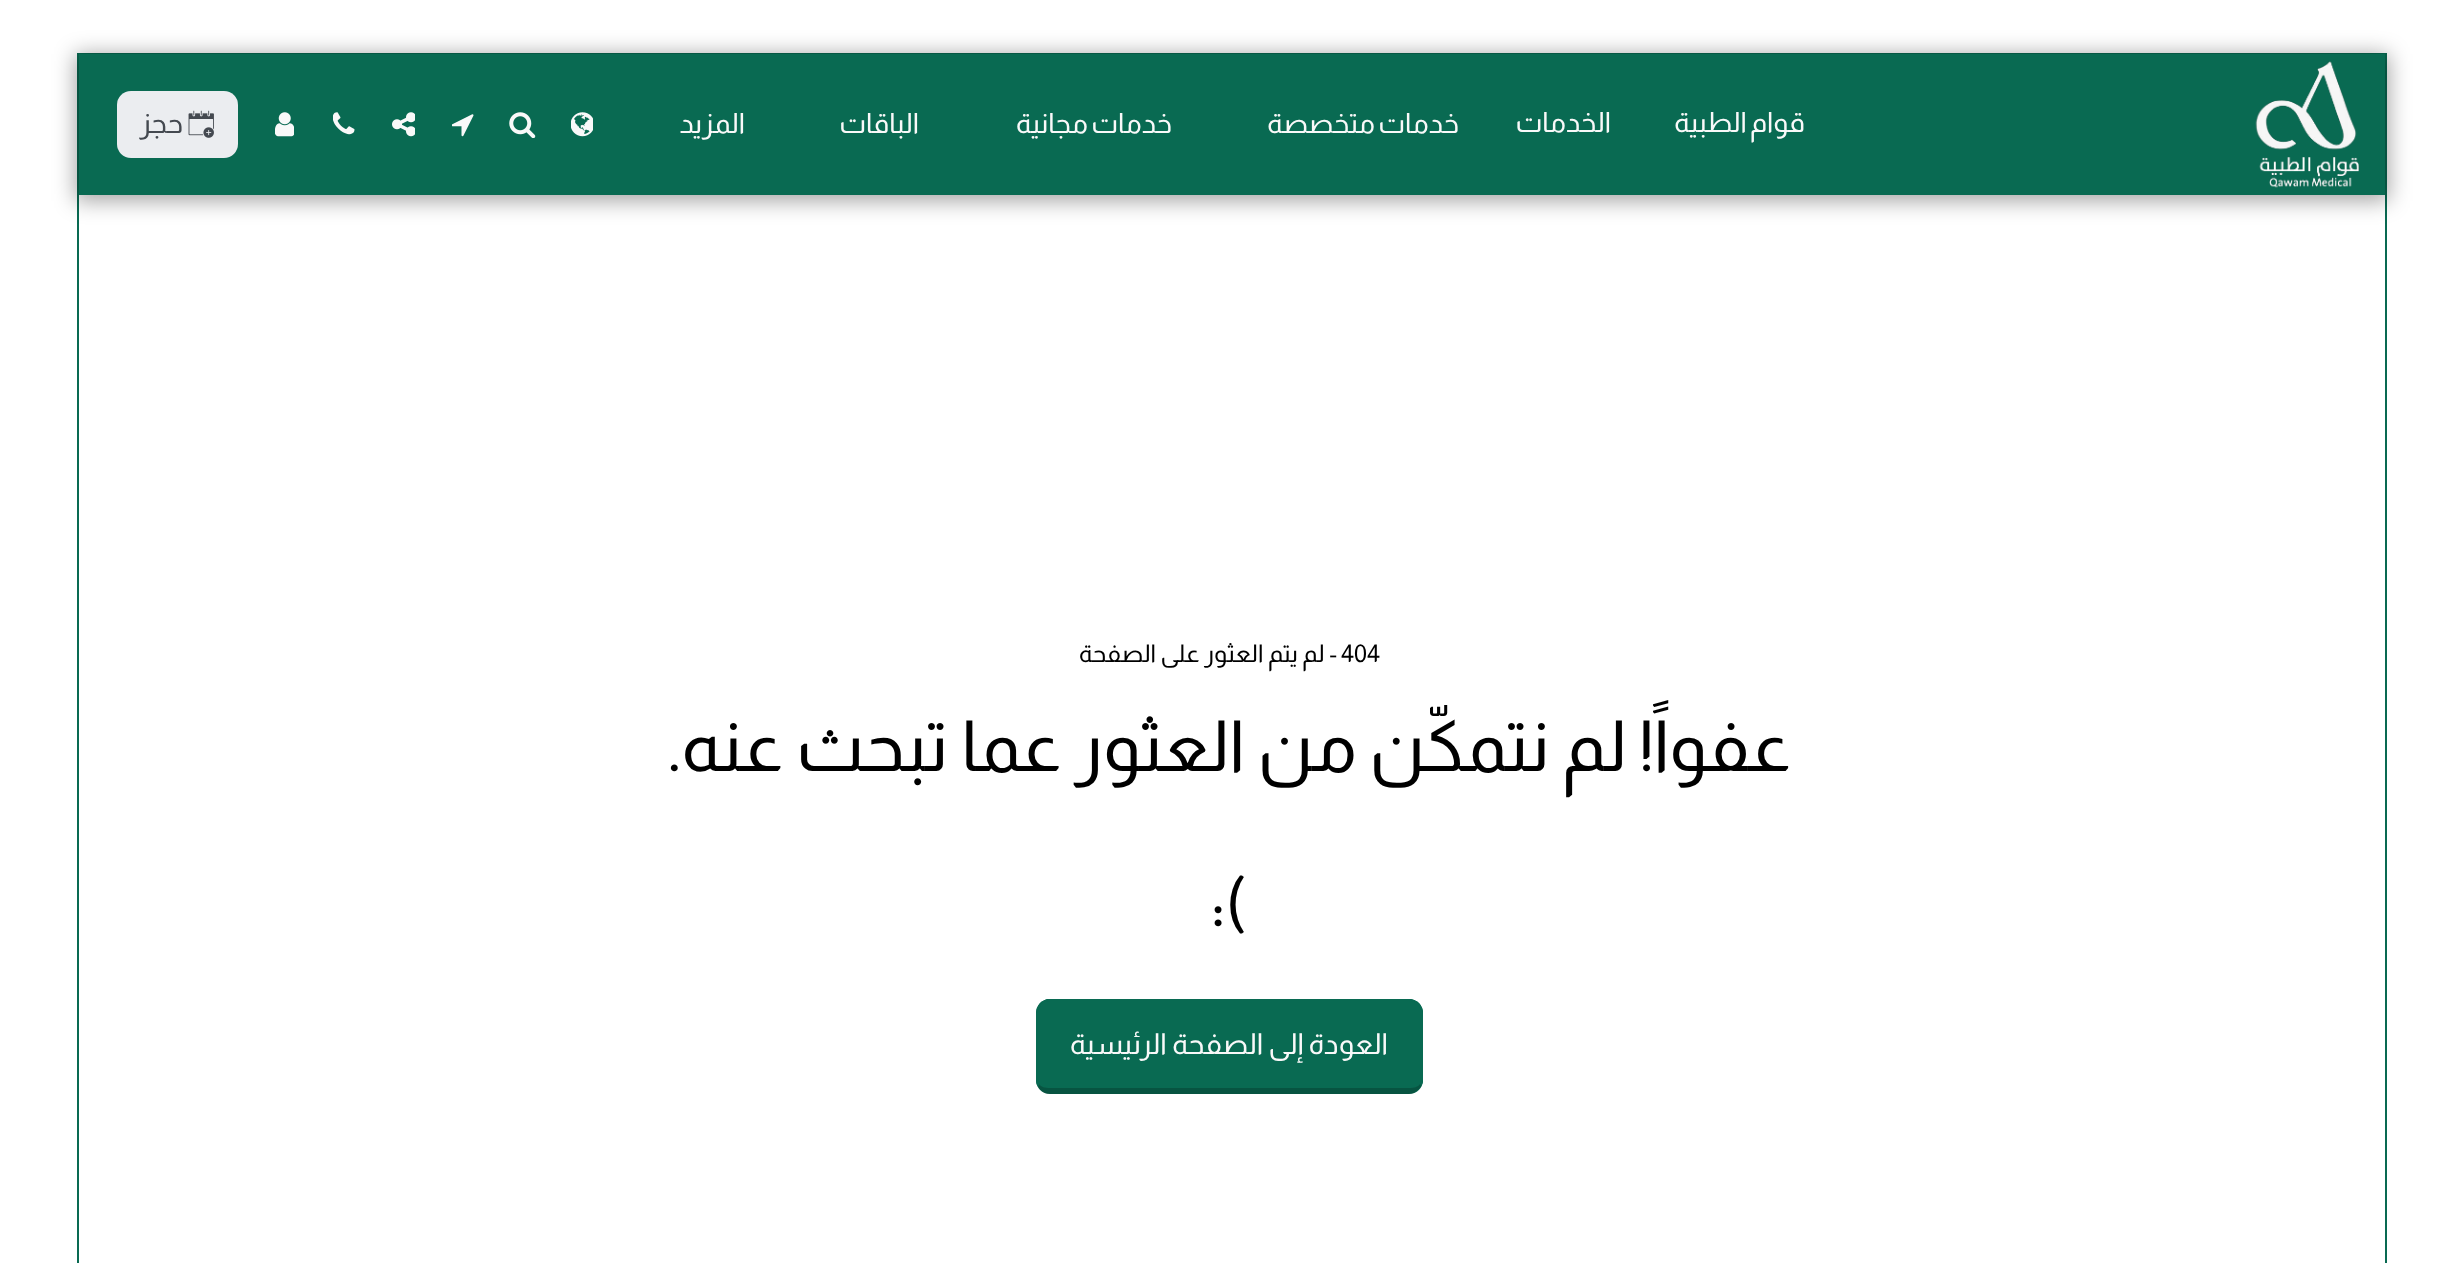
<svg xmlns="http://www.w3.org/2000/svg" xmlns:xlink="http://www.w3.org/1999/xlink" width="2462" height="1263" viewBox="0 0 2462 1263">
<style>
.cls-1{font:28px Almarai;letter-spacing:0.9px;direction:rtl;fill:#f9f9f9}
.cls-2{font:28px Almarai;direction:rtl;fill:#444950}
.cls-3{font:24.5px Almarai;fill:#000000}
.cls-4{font:24.5px Almarai;direction:rtl;fill:#000000}
.cls-5{font:70.5px Almarai;direction:rtl;fill:#000000}
.cls-6{font:70.5px Almarai;fill:#000000}
.cls-7{font:28.9px Almarai;direction:rtl;fill:#f9f9f9}
</style>
<rect width="100%" height="100%" fill="#ffffff"/>
<rect fill="none" stroke="#096a52" stroke-width="2" x="78" y="54" width="2308" height="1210"/>
<rect fill="#000000" fill-opacity="0.35" filter="blur(10.5px)" x="75" y="54" width="2314" height="147"/>
<rect fill="#096a52" x="79" y="54" width="2306" height="141"/>
<image xlink:href="image0.png" x="2255" y="61" width="104" height="127"/>
<image xlink:href="image1.png" x="571" y="112" width="22" height="25"/>
<image xlink:href="image2.png" x="509" y="112" width="27" height="26"/>
<image xlink:href="image3.png" x="452" y="114" width="22" height="23"/>
<image xlink:href="image4.png" x="392" y="112" width="23" height="25"/>
<image xlink:href="image5.png" x="333" y="112" width="22" height="23"/>
<image xlink:href="image6.png" x="275" y="112" width="19" height="25"/>
<rect fill="#ebedf0" x="117" y="91" width="121" height="67" rx="14"/>
<image xlink:href="image7.png" x="188" y="110" width="26" height="28"/>
<rect fill="#096a52" x="1036" y="999" width="387" height="95" rx="14"/>
<path fill="#096a52" d="M1050 1001C1046 1001 1043 1002 1041 1005L1040 1003C1042 1001 1045 1000 1047 999H1411C1414 1000 1417 1001 1419 1003L1418 1004C1416 1002 1412 1001 1409 1001Z"/>
<path fill="#096a52" d="M1423 1082L1421 1087L1420 1084L1421 1081V1010C1420 1008 1419 1006 1418 1004L1419 1003C1421 1005 1422 1008 1423 1011Z"/>
<path fill="#000000" fill-opacity="0.2" d="M1047 1094C1043 1093 1040 1090 1038 1087L1039 1084C1041 1087 1045 1088 1050 1088H1409C1414 1088 1418 1087 1420 1084L1421 1087C1418 1090 1415 1093 1411 1094Z"/>
<path fill="#096a52" d="M1036 1013V1080C1036 1083 1037 1085 1038 1087L1039 1084C1038 1083 1038 1082 1038 1080V1013C1038 1010 1039 1007 1041 1005L1040 1003C1038 1006 1036 1009 1036 1013Z"/>
<text class="cls-1" x="1805" y="132" word-spacing="-2">قوام الطبية</text>
<text class="cls-1" x="1611" y="132">الخدمات</text>
<text class="cls-1" x="1459" y="133" word-spacing="-2">خدمات متخصصة</text>
<text class="cls-1" x="1172" y="133" word-spacing="-2">خدمات مجانية</text>
<text class="cls-1" x="919" y="133">الباقات</text>
<text class="cls-1" x="745" y="133">المزيد</text>
<text class="cls-2" x="183" y="133">حجز</text>
<text class="cls-3" x="1341" y="662">404</text>
<text class="cls-4" x="1337" y="662">- لم يتم العثور على الصفحة</text>
<text class="cls-5" x="1791" y="771">عفواً! لم نتمكّن من العثور عما تبحث عنه.</text>
<text class="cls-6" x="1211" y="926">:(</text>
<text class="cls-7" x="1388" y="1054">العودة إلى الصفحة الرئيسية</text>
</svg>
